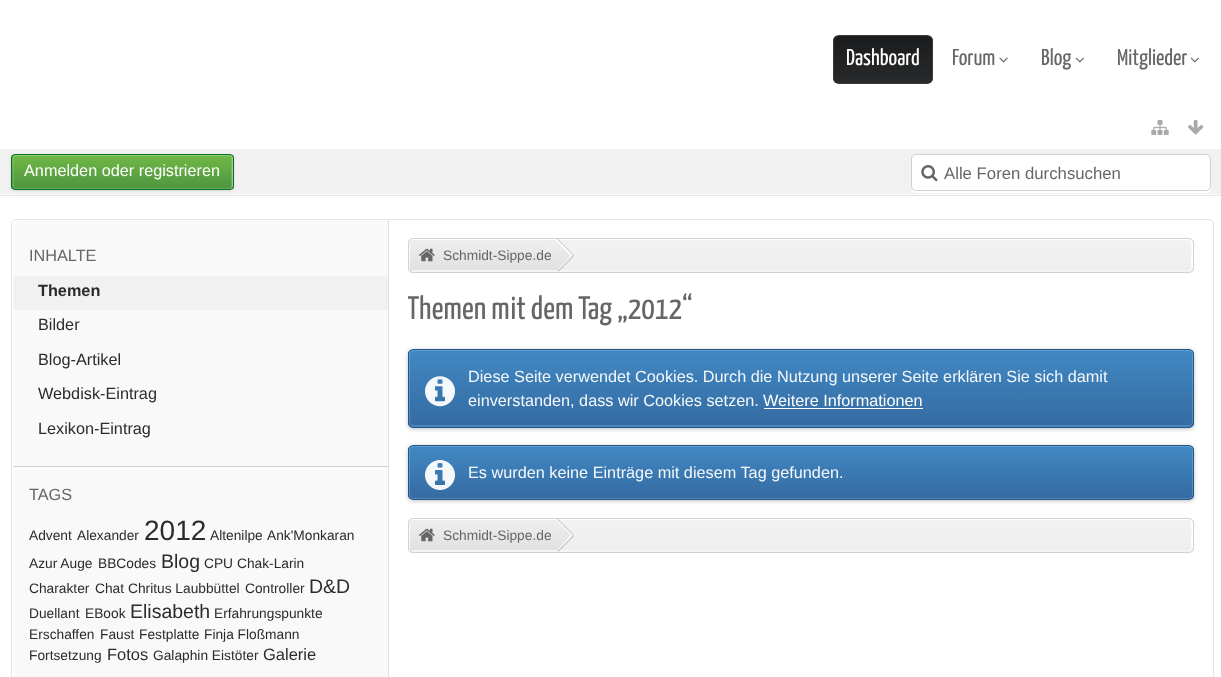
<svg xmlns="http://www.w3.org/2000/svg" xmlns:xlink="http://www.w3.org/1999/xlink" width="1221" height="677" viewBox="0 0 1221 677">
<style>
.cls-1{font:23px Yanone Kaffeesatz;fill:#ffffff}
.cls-2{font:23px Yanone Kaffeesatz;fill:#666666}
.cls-3{font:16.25px Liberation Sans;fill:#ffffff}
.cls-4{font:16.75px Liberation Sans;fill:#666666}
.cls-5{font:16.25px Liberation Sans;fill:#666666}
.cls-6{font:bold 16.25px Liberation Sans;fill:#2b2b2c}
.cls-7{font:16.25px Liberation Sans;fill:#2b2b2c}
.cls-8{font:13.75px Liberation Sans;fill:#2b2b2c}
.cls-9{font:28px Liberation Sans;fill:#2b2b2c}
.cls-10{font:19.5px Liberation Sans;fill:#2b2b2c}
.cls-11{font:16.5px Liberation Sans;fill:#2b2b2c}
.cls-12{font:13.75px Liberation Sans;fill:#666666}
.cls-13{font:32.5px Yanone Kaffeesatz;fill:#666666}
.cls-14{font:16.25px Liberation Sans;fill:#f5f9fb}
</style>
<defs>
<clipPath id="clip1"><rect x="833" y="35" width="100" height="49" rx="6"/></clipPath>
<linearGradient id="g1" gradientUnits="userSpaceOnUse" x1="883" y1="36" x2="883" y2="83"><stop offset="0" stop-color="#1a1b1c"/><stop offset="1" stop-color="#292a2b"/></linearGradient>
<clipPath id="clip2"><rect x="11" y="154" width="223" height="36" rx="4"/></clipPath>
<linearGradient id="g2" gradientUnits="userSpaceOnUse" x1="123" y1="155" x2="123" y2="189"><stop offset="0" stop-color="#70b845"/><stop offset="1" stop-color="#4e9540"/></linearGradient>
<clipPath id="clip3"><rect x="408" y="238" width="786" height="35" rx="5"/></clipPath>
<linearGradient id="g3" gradientUnits="userSpaceOnUse" x1="801" y1="239" x2="801" y2="271"><stop offset="0" stop-color="#f2f2f2" stop-opacity="0.8"/><stop offset="1" stop-color="#ececec" stop-opacity="0.8"/></linearGradient>
<linearGradient id="g4" gradientUnits="userSpaceOnUse" x1="801" y1="271" x2="801" y2="304"><stop offset="0" stop-color="#f2f2f2" stop-opacity="0.8"/><stop offset="1" stop-color="#ececec" stop-opacity="0.8"/></linearGradient>
<linearGradient id="g5" gradientUnits="userSpaceOnUse" x1="485" y1="240" x2="485" y2="270"><stop offset="0" stop-color="#eeeeee"/><stop offset="1" stop-color="#e1e1e1"/></linearGradient>
<linearGradient id="g6" gradientUnits="userSpaceOnUse" x1="573" y1="224" x2="573" y2="256"><stop offset="0" stop-color="#eeeeee"/><stop offset="1" stop-color="#e1e1e1"/></linearGradient>
<linearGradient id="g7" gradientUnits="userSpaceOnUse" x1="557" y1="240" x2="557" y2="272"><stop offset="0" stop-color="#eeeeee"/><stop offset="1" stop-color="#e1e1e1"/></linearGradient>
<linearGradient id="g8" gradientUnits="userSpaceOnUse" x1="573" y1="256" x2="573" y2="287"><stop offset="0" stop-color="#eeeeee"/><stop offset="1" stop-color="#e1e1e1"/></linearGradient>
<clipPath id="clip4"><path d="M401 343H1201V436H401ZM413 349H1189C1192 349 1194 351 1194 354V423C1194 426 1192 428 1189 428H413C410 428 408 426 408 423V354C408 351 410 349 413 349Z" clip-rule="evenodd"/></clipPath>
<clipPath id="clip5"><rect x="408" y="349" width="786" height="79" rx="5"/></clipPath>
<linearGradient id="g9" gradientUnits="userSpaceOnUse" x1="801" y1="350" x2="801" y2="426"><stop offset="0" stop-color="#3782c0" stop-opacity="0.95"/><stop offset="1" stop-color="#2a639d" stop-opacity="0.95"/></linearGradient>
<linearGradient id="g10" gradientUnits="userSpaceOnUse" x1="801" y1="426" x2="801" y2="503"><stop offset="0" stop-color="#3782c0" stop-opacity="0.95"/><stop offset="1" stop-color="#2a639d" stop-opacity="0.95"/></linearGradient>
<clipPath id="clip6"><path d="M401 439H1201V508H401ZM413 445H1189C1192 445 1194 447 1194 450V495C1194 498 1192 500 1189 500H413C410 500 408 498 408 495V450C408 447 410 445 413 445Z" clip-rule="evenodd"/></clipPath>
<clipPath id="clip7"><rect x="408" y="445" width="786" height="55" rx="5"/></clipPath>
<linearGradient id="g11" gradientUnits="userSpaceOnUse" x1="801" y1="446" x2="801" y2="499"><stop offset="0" stop-color="#3782c0" stop-opacity="0.95"/><stop offset="1" stop-color="#2a639d" stop-opacity="0.95"/></linearGradient>
<clipPath id="clip8"><rect x="408" y="518" width="786" height="35" rx="5"/></clipPath>
<linearGradient id="g12" gradientUnits="userSpaceOnUse" x1="801" y1="519" x2="801" y2="551"><stop offset="0" stop-color="#f2f2f2" stop-opacity="0.8"/><stop offset="1" stop-color="#ececec" stop-opacity="0.8"/></linearGradient>
<linearGradient id="g13" gradientUnits="userSpaceOnUse" x1="801" y1="551" x2="801" y2="584"><stop offset="0" stop-color="#f2f2f2" stop-opacity="0.8"/><stop offset="1" stop-color="#ececec" stop-opacity="0.8"/></linearGradient>
<linearGradient id="g14" gradientUnits="userSpaceOnUse" x1="485" y1="520" x2="485" y2="550"><stop offset="0" stop-color="#eeeeee"/><stop offset="1" stop-color="#e1e1e1"/></linearGradient>
<linearGradient id="g15" gradientUnits="userSpaceOnUse" x1="573" y1="504" x2="573" y2="535"><stop offset="0" stop-color="#eeeeee"/><stop offset="1" stop-color="#e1e1e1"/></linearGradient>
<linearGradient id="g16" gradientUnits="userSpaceOnUse" x1="557" y1="520" x2="557" y2="551"><stop offset="0" stop-color="#eeeeee"/><stop offset="1" stop-color="#e1e1e1"/></linearGradient>
<linearGradient id="g17" gradientUnits="userSpaceOnUse" x1="573" y1="535" x2="573" y2="567"><stop offset="0" stop-color="#eeeeee"/><stop offset="1" stop-color="#e1e1e1"/></linearGradient>
<clipPath id="clip9"><rect x="408" y="290" width="786" height="41"/></clipPath>
</defs>
<rect width="100%" height="100%" fill="#ffffff"/>
<g clip-path="url(#clip1)">
<rect fill="url(#g1)" x="833" y="36" width="100" height="47"/>
</g>
<rect fill="none" stroke="#3a3a3b" x="833.5" y="35.5" width="99" height="48" rx="5.5"/>
<image xlink:href="image0.png" x="999" y="57" width="9" height="6"/>
<image xlink:href="image1.png" x="1075" y="57" width="9" height="6"/>
<image xlink:href="image1.png" x="1190" y="57" width="9" height="6"/>
<image xlink:href="image2.png" x="1151" y="120" width="18" height="15"/>
<image xlink:href="image3.png" x="1188" y="120" width="16" height="15"/>
<rect fill="#e6e6e6" x="0" y="195" width="1221" height="1"/>
<rect fill="#f1f1f1" x="0" y="149" width="1221" height="45"/>
<rect fill="#fbfbfb" x="0" y="194" width="1221" height="1"/>
<rect fill="#000000" fill-opacity="0.1" filter="blur(1px)" x="11" y="155" width="223" height="36" rx="4"/>
<g clip-path="url(#clip2)">
<rect fill="url(#g2)" x="11" y="155" width="223" height="34"/>
</g>
<path fill="#ffffff" fill-opacity="0.25" d="M15 156H230C234 156 232 167 232 169V189C233 188 233 187 233 186V158C233 156 232 155 230 155H16C14 155 13 156 13 157Z"/>
<path fill="#ffffff" fill-opacity="0.15" d="M13 187C13 188 14 189 16 189H230C232 189 233 188 233 186V158C233 157 233 156 232 155V175C232 176 233 188 230 188H15Z"/>
<path fill="#ffffff" fill-opacity="0.15" d="M15.5 155C14 155 13 156 13 157.5V186.5C13 188 14 189 15.5 189H16C15 189 14 188 14 186V158C14 156 15 155 16 155Z"/>
<path fill="#ffffff" fill-opacity="0.15" d="M229 189C234 189 233 186.5 233 181.5V162.5C233 157.5 234 155 229 155C230 155 231 156 231 158V186C231 188 230 189 229 189Z"/>
<rect fill="none" stroke="#007225" x="11.5" y="154.5" width="222" height="35" rx="3.5"/>
<path fill="#ffffff" d="M911 158V179C911 183 909 193 916 193H1206C1209 193 1211 191 1211 188C1210 190 1208 191 1206 191H916C913 191 911 189 911 186Z"/>
<rect fill="#ffffff" stroke="#d1d1d1" x="911.5" y="154.5" width="299" height="36" rx="4.5"/>
<image xlink:href="image4.png" x="921" y="165" width="17" height="17"/>
<rect fill="none" stroke="#000000" stroke-opacity="0.1" x="11.5" y="219.5" width="1202" height="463" rx="4.5"/>
<path fill="#f9f9f9" d="M18 220H389V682H18C15 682 13 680 13 677V225C13 222 15 220 18 220Z"/>
<path fill="#ffffff" d="M19 221H388V220H18C15 220 13 222 13 225V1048C13 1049 14 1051 15 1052L14 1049V226C14 223 16 221 19 221Z"/>
<rect fill="#e0e0e0" x="388" y="220" width="1" height="457"/>
<path fill="#ffffff" d="M13 468V469H388V248V468Z"/>
<rect fill="#d1d1d1" x="13" y="466" width="375" height="1"/>
<rect fill="#000000" fill-opacity="0.03" x="13" y="276" width="375" height="34"/>
<rect fill="#f2f2f2" fill-opacity="0.8" x="408" y="238" width="786" height="35" rx="5"/>
<g clip-path="url(#clip3)">
<rect fill="url(#g3)" x="408" y="239" width="786" height="32"/>
<rect fill="url(#g4)" x="408" y="271" width="786" height="2"/>
</g>
<path fill="#ffffff" fill-opacity="0.7" d="M1188 271C1193.5 271 1193 267.5 1193 263V247C1193 242.5 1193.5 239 1188 239C1190 239 1191 240 1191 242V268C1191 270 1190 271 1188 271Z"/>
<path fill="#ffffff" fill-opacity="0.7" d="M413 239C411 239 409 241 409 243V267C409 269 411 271 413 271H414C412 271 410 270 410 268V242C410 240 412 239 414 239Z"/>
<path fill="#ffffff" fill-opacity="0.4" d="M409 266V267C409 269 411 271 413 271H1189C1191 271 1193 269 1193 267V243C1193 242 1193 241 1192 240V266C1192 268 1191 270 1189 270H412C410 270 409 268 409 266Z"/>
<path fill="#ffffff" d="M412 240H1189C1191 240 1192 242 1192 244V270C1193 269 1193 268 1193 267V243C1193 241 1191 239 1189 239H413C411 239 409 241 409 243V244C409 242 410 240 412 240Z"/>
<rect fill="none" stroke="#d1d1d1" x="408.5" y="238.5" width="785" height="34" rx="4.5"/>
<rect fill="url(#g5)" x="410" y="240" width="150" height="30"/>
<image xlink:href="image5.png" x="419" y="248" width="16" height="14"/>
<path fill="url(#g6)" d="M557 239.5L558 239L573 254L573.5 255L573 255.5Z"/>
<path fill="url(#g7)" d="M557 239.5L573 255.5L557.5 271H556.5L541 255.5Z"/>
<path fill="url(#g8)" d="M573 255.5L573.5 256L573 257.5L559 271H557.5Z"/>
<path fill="#ffffff" fill-opacity="0.7" fill-rule="evenodd" d="M557.5 271H556C558 269 572 256 571.5 254.5H572C572.5 255 572.5 256 572 256.5ZM557 239.5L571 254Z"/>
<path fill="#ffffff" fill-rule="evenodd" d="M556 241L571 256C571.5 256 572 256.5 571.5 256.5H572C572.5 256 572.5 255 572 254.5L557 239.5L541 255.5V256ZM557.5 271L571.5 257H571L557 271Z"/>
<path fill="#d1d1d1" fill-rule="evenodd" d="M549.5 247.5L557 239.5ZM572.5 255.5C572.5 254 559 241.5 557 239.5L558 239L573.5 254.5V255.5Z"/>
<path fill="#bfbfbf" d="M559 271H557.5C559.5 269 572.5 257 572.5 255.5H573.5V256.5Z"/>
<g clip-path="url(#clip4)">
<rect fill="#000000" fill-opacity="0.25" filter="blur(2px)" x="408" y="350" width="786" height="79" rx="5"/>
</g>
<g clip-path="url(#clip5)">
<rect fill="url(#g9)" x="408" y="350" width="786" height="76"/>
<rect fill="url(#g10)" x="408" y="426" width="786" height="2"/>
</g>
<rect fill="none" stroke="#ffffff" stroke-opacity="0.18" x="409.5" y="350.5" width="783" height="75" rx="3.5"/>
<rect fill="none" stroke="#21568c" x="408.5" y="349.5" width="785" height="78" rx="4.5"/>
<image xlink:href="image6.png" x="425" y="376" width="30" height="31"/>
<rect fill="#ffffff" x="764" y="408" width="159" height="1"/>
<g clip-path="url(#clip6)">
<rect fill="#000000" fill-opacity="0.25" filter="blur(2px)" x="408" y="446" width="786" height="55" rx="5"/>
</g>
<g clip-path="url(#clip7)">
<rect fill="url(#g11)" x="408" y="446" width="786" height="53"/>
</g>
<rect fill="none" stroke="#ffffff" stroke-opacity="0.18" x="409.5" y="446.5" width="783" height="52" rx="3.5"/>
<rect fill="none" stroke="#21568c" x="408.5" y="445.5" width="785" height="54" rx="4.5"/>
<image xlink:href="image7.png" x="425" y="460" width="30" height="30"/>
<rect fill="#f2f2f2" fill-opacity="0.8" x="408" y="518" width="786" height="35" rx="5"/>
<g clip-path="url(#clip8)">
<rect fill="url(#g12)" x="408" y="519" width="786" height="32"/>
<rect fill="url(#g13)" x="408" y="551" width="786" height="2"/>
</g>
<path fill="#ffffff" fill-opacity="0.7" d="M1188 551C1193.5 551 1193 547.5 1193 543V527C1193 522.5 1193.5 519 1188 519C1190 519 1191 520 1191 522V548C1191 550 1190 551 1188 551Z"/>
<path fill="#ffffff" fill-opacity="0.7" d="M413 519C411 519 409 521 409 523V547C409 549 411 551 413 551H414C412 551 410 550 410 548V522C410 520 412 519 414 519Z"/>
<path fill="#ffffff" fill-opacity="0.4" d="M409 546V547C409 549 411 551 413 551H1189C1191 551 1193 549 1193 547V523C1193 522 1193 521 1192 520V546C1192 548 1191 550 1189 550H412C410 550 409 548 409 546Z"/>
<path fill="#ffffff" d="M412 520H1189C1191 520 1192 522 1192 524V550C1193 549 1193 548 1193 547V523C1193 521 1191 519 1189 519H413C411 519 409 521 409 523V524C409 522 410 520 412 520Z"/>
<rect fill="none" stroke="#d1d1d1" x="408.5" y="518.5" width="785" height="34" rx="4.5"/>
<rect fill="url(#g14)" x="410" y="520" width="150" height="30"/>
<image xlink:href="image5.png" x="419" y="528" width="16" height="14"/>
<path fill="url(#g15)" d="M558 519L573 533.5L573.5 535L573 535.5L557 519.5L557.5 519Z"/>
<path fill="url(#g16)" d="M557 519.5L573 535.5L557 551.5L541 535.5Z"/>
<path fill="url(#g17)" d="M573 535.5L573.5 536L573 537.5L559 551H557.5Z"/>
<path fill="#ffffff" fill-opacity="0.7" fill-rule="evenodd" d="M557.5 551H556L571 535C571.5 535 572 534.5 571.5 534.5H572C572.5 535 572.5 536 572 536.5ZM557 519.5H556.5L571 534H571.5Z"/>
<path fill="#ffffff" fill-rule="evenodd" d="M557.5 551L571.5 537L557 551ZM557 519.5L572 534.5C572.5 535 572.5 536 572 536.5H571.5C572 535 558 522 556 520Z"/>
<path fill="#d1d1d1" d="M557 519.5L557.5 519H558L573.5 534.5L574 535.5H572.5L572 534.5Z"/>
<path fill="#bfbfbf" d="M559 551H557.5C559.5 549 572.5 537 572.5 535.5H574L573.5 536.5Z"/>
<text class="cls-1" x="846" y="65">Dashboard</text>
<text class="cls-2" x="952" y="65">Forum</text>
<text class="cls-2" x="1041" y="65">Blog</text>
<text class="cls-2" x="1117" y="65">Mitglieder</text>
<text class="cls-3" x="24" y="176">Anmelden oder registrieren</text>
<text class="cls-4" x="944" y="179">Alle Foren durchsuchen</text>
<text class="cls-5" x="29" y="261">INHALTE</text>
<text class="cls-6" x="38" y="296">Themen</text>
<text class="cls-7" x="38" y="330">Bilder</text>
<text class="cls-7" x="38" y="365">Blog-Artikel</text>
<text class="cls-7" x="38" y="399">Webdisk-Eintrag</text>
<text class="cls-7" x="38" y="434">Lexikon-Eintrag</text>
<text class="cls-5" x="29" y="500">TAGS</text>
<text class="cls-8" x="29" y="540">Advent</text>
<text class="cls-8" x="77" y="540">Alexander</text>
<text class="cls-9" x="144" y="540">2012</text>
<text class="cls-8" x="210" y="540">Altenilpe</text>
<text class="cls-8" x="267" y="540">Ank'Monkaran</text>
<text class="cls-8" x="29" y="568">Azur Auge</text>
<text class="cls-8" x="98" y="568">BBCodes</text>
<text class="cls-10" x="161" y="568">Blog</text>
<text class="cls-8" x="204" y="568">CPU</text>
<text class="cls-8" x="237" y="568">Chak-Larin</text>
<text class="cls-8" x="29" y="593">Charakter</text>
<text class="cls-8" x="95" y="593">Chat</text>
<text class="cls-8" x="128" y="593">Chritus Laubbüttel</text>
<text class="cls-8" x="245" y="593">Controller</text>
<text class="cls-10" x="309" y="593">D&amp;D</text>
<text class="cls-8" x="29" y="618">Duellant</text>
<text class="cls-8" x="85" y="618">EBook</text>
<text class="cls-10" x="130" y="618">Elisabeth</text>
<text class="cls-8" x="214" y="618">Erfahrungspunkte</text>
<text class="cls-8" x="29" y="639">Erschaffen</text>
<text class="cls-8" x="100" y="639">Faust</text>
<text class="cls-8" x="139" y="639">Festplatte</text>
<text class="cls-8" x="204" y="639">Finja Floßmann</text>
<text class="cls-8" x="29" y="660">Fortsetzung</text>
<text class="cls-11" x="107" y="660">Fotos</text>
<text class="cls-8" x="153" y="660">Galaphin Eistöter</text>
<text class="cls-11" x="263" y="660">Galerie</text>
<text class="cls-12" x="443" y="260">Schmidt-Sippe.de</text>
<g clip-path="url(#clip9)">
<text class="cls-13" x="407" y="319">Themen mit dem Tag „2012“</text>
</g>
<text class="cls-14"><tspan x="468" y="382">Diese Seite verwendet Cookies. Durch die Nutzung unserer Seite erklären Sie sich damit</tspan><tspan x="468" y="406">einverstanden, dass wir Cookies setzen.</tspan></text>
<text class="cls-3" x="763" y="406">Weitere Informationen</text>
<text class="cls-14" x="468" y="478">Es wurden keine Einträge mit diesem Tag gefunden.</text>
<text class="cls-12" x="443" y="540">Schmidt-Sippe.de</text>
</svg>
